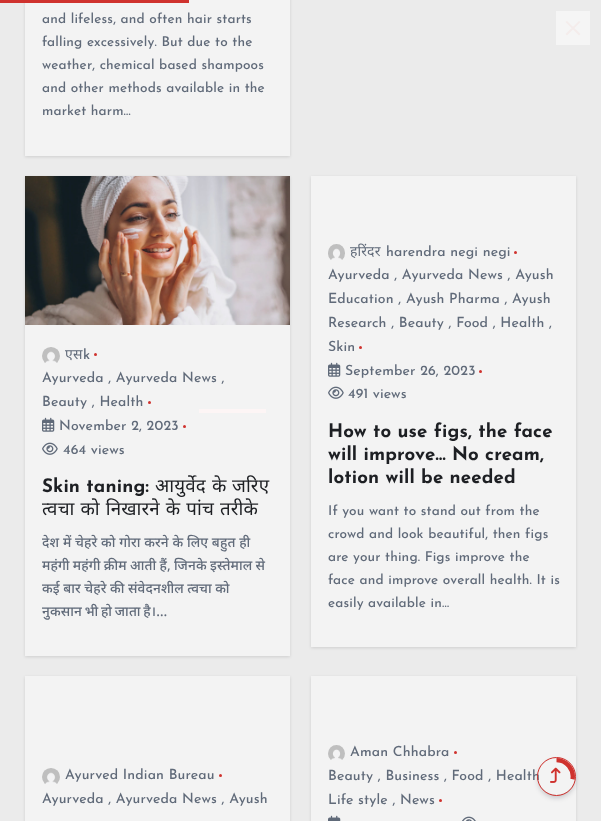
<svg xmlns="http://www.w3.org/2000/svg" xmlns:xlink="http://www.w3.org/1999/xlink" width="601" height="821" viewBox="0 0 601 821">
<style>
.cls-1{font:500 13.6px Josefin Sans;letter-spacing:0.15px;fill:#606a79}
.cls-2{font:14px Noto Sans;letter-spacing:0.15px;fill:#606a79}
.cls-3{font:500 14px Josefin Sans;letter-spacing:0.15px;fill:#606a79}
.cls-4{font:bold 18.7px Josefin Sans;letter-spacing:0.15px;fill:#1d1f23}
.cls-5{font:18.7px Noto Sans;letter-spacing:0.15px;fill:#1d1f23}
.cls-6{font:500 13.6px Noto Sans;letter-spacing:0.15px;fill:#606a79}
</style>
<defs>
<clipPath id="clip1"><rect x="538" y="758" width="37" height="37" rx="18.5"/></clipPath>
</defs>
<rect width="100%" height="100%" fill="#ebebeb"/>
<rect fill="#0d0d0e" fill-opacity="0.12" filter="blur(1.5px)" x="25" y="-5" width="265" height="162"/>
<rect fill="#f3f3f3" x="25" y="0" width="265" height="156"/>
<rect fill="#cf322e" x="0" y="0" width="189" height="3"/>
<rect fill="#f5f5f5" x="556" y="11" width="34" height="34"/>
<path fill="#f4eceb" d="M565.5 34L579 21L580.5 22L567 35.5Z"/>
<path fill="#f4eceb" d="M579 35.5L565.5 22L567 21L580.5 34Z"/>
<rect fill="#0d0d0e" fill-opacity="0.12" filter="blur(1.5px)" x="25" y="177" width="265" height="480"/>
<rect fill="#f3f3f3" x="25" y="325" width="265" height="331"/>
<rect fill="#fdf5f5" x="199" y="409" width="67" height="4"/>
<image xlink:href="image0.png" x="25" y="176" width="265" height="149"/>
<image xlink:href="image1.png" x="42" y="347" width="18" height="16"/>
<circle fill="#cf322e" cx="95.5" cy="354.5" r="1.5"/>
<circle fill="#cf322e" cx="149.5" cy="402.5" r="1.5"/>
<image xlink:href="image2.png" x="42" y="417" width="13" height="15"/>
<circle fill="#cf322e" cx="184.5" cy="426.5" r="1.5"/>
<image xlink:href="image3.png" x="42" y="442" width="16" height="13"/>
<rect fill="#0d0d0e" fill-opacity="0.12" filter="blur(1.5px)" x="311" y="177" width="265" height="471"/>
<rect fill="#f3f3f3" x="311" y="176" width="265" height="471"/>
<image xlink:href="image4.png" x="328" y="244" width="17" height="16"/>
<circle fill="#cf322e" cx="515.5" cy="252.5" r="1.5"/>
<circle fill="#cf322e" cx="360.5" cy="347.5" r="1.5"/>
<image xlink:href="image2.png" x="328" y="362" width="13" height="15"/>
<circle fill="#cf322e" cx="480.5" cy="371.5" r="1.5"/>
<image xlink:href="image3.png" x="328" y="386" width="16" height="13"/>
<rect fill="#0d0d0e" fill-opacity="0.12" filter="blur(1.5px)" x="25" y="677" width="265" height="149"/>
<rect fill="#f3f3f3" x="25" y="676" width="265" height="145"/>
<image xlink:href="image1.png" x="42" y="768" width="18" height="16"/>
<circle fill="#cf322e" cx="220.5" cy="775.5" r="1.5"/>
<rect fill="#0d0d0e" fill-opacity="0.12" filter="blur(1.5px)" x="311" y="677" width="265" height="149"/>
<rect fill="#f3f3f3" x="311" y="676" width="265" height="145"/>
<image xlink:href="image5.png" x="328" y="745" width="17" height="15"/>
<circle fill="#cf322e" cx="455.5" cy="752.5" r="1.5"/>
<circle fill="#cf322e" cx="440.5" cy="800.5" r="1.5"/>
<image xlink:href="image6.png" x="328" y="815" width="13" height="6"/>
<image xlink:href="image7.png" x="462" y="816" width="14" height="5"/>
<rect fill="#131624" fill-opacity="0.2" filter="blur(2.5px)" x="538" y="761" width="37" height="37" rx="18.5"/>
<circle fill="#f3f3f3" cx="556.5" cy="776.5" r="18.5"/>
<g clip-path="url(#clip1)">
<path fill="none" stroke="#cf322e" stroke-width="7.4" d="M556.5 758.5C567.5 758.5 576 769 574 779.5"/>
</g>
<text class="cls-1"><tspan x="42" y="23">and lifeless, and often hair starts</tspan><tspan x="42" y="46">falling excessively. But due to the</tspan><tspan x="42" y="69">weather, chemical based shampoos</tspan><tspan x="42" y="92">and other methods available in the</tspan><tspan x="42" y="115">market harm…</tspan></text>
<text class="cls-2" x="65" y="359">एस</text>
<text class="cls-3" x="83" y="359">k</text>
<text class="cls-3"><tspan x="42" y="382">Ayurveda , Ayurveda News ,</tspan><tspan x="42" y="406">Beauty , Health</tspan></text>
<text class="cls-3" x="59" y="430">November 2, 2023</text>
<text class="cls-3" x="63" y="454">464 views</text>
<text class="cls-4" x="42" y="492">Skin taning:</text>
<text class="cls-5" x="155" y="492">आयुर्वेद</text>
<text class="cls-5" x="212" y="492">के</text>
<text class="cls-5" x="232" y="492">जरिए</text>
<text class="cls-5" x="42" y="515" word-spacing="1">त्वचा को निखारने के पांच तरीके</text>
<text class="cls-6"><tspan x="42" y="547">देश में चेहरे को गोरा करने के लिए बहुत ही</tspan><tspan x="42" y="570" word-spacing="-0.5">महंगी महंगी क्रीम आती हैं, जिनके इस्तेमाल से</tspan><tspan x="42" y="593" word-spacing="-0.25">कई बार चेहरे की संवेदनशील त्वचा को</tspan><tspan x="42" y="616" word-spacing="-1">नुकसान भी हो जाता है।…</tspan></text>
<text class="cls-2" x="350" y="256">हरिंदर</text>
<text class="cls-3" x="386" y="256">harendra negi negi</text>
<text class="cls-3"><tspan x="328" y="279">Ayurveda , Ayurveda News , Ayush</tspan><tspan x="328" y="303">Education , Ayush Pharma , Ayush</tspan><tspan x="328" y="327">Research , Beauty , Food , Health ,</tspan><tspan x="328" y="351">Skin</tspan></text>
<text class="cls-3" x="345" y="375">September 26, 2023</text>
<text class="cls-3" x="348" y="398">491 views</text>
<text class="cls-4"><tspan x="328" y="437">How to use figs, the face</tspan><tspan x="328" y="460">will improve… No cream,</tspan><tspan x="328" y="483">lotion will be needed</tspan></text>
<text class="cls-1"><tspan x="328" y="515">If you want to stand out from the</tspan><tspan x="328" y="538">crowd and look beautiful, then figs</tspan><tspan x="328" y="561">are your thing. Figs improve the</tspan><tspan x="328" y="584">face and improve overall health. It is</tspan><tspan x="328" y="607">easily available in…</tspan></text>
<text class="cls-3" x="65" y="779">Ayurved Indian Bureau</text>
<text class="cls-3" x="42" y="803">Ayurveda , Ayurveda News , Ayush</text>
<text class="cls-3" x="350" y="756">Aman Chhabra</text>
<text class="cls-3"><tspan x="328" y="780">Beauty , Business , Food , Health</tspan><tspan x="328" y="804">Life style , News</tspan></text>
<circle fill="none" stroke="#cf322e" cx="556.5" cy="776.5" r="19"/>
<image xlink:href="image8.png" x="550" y="767" width="11" height="16"/>
</svg>
